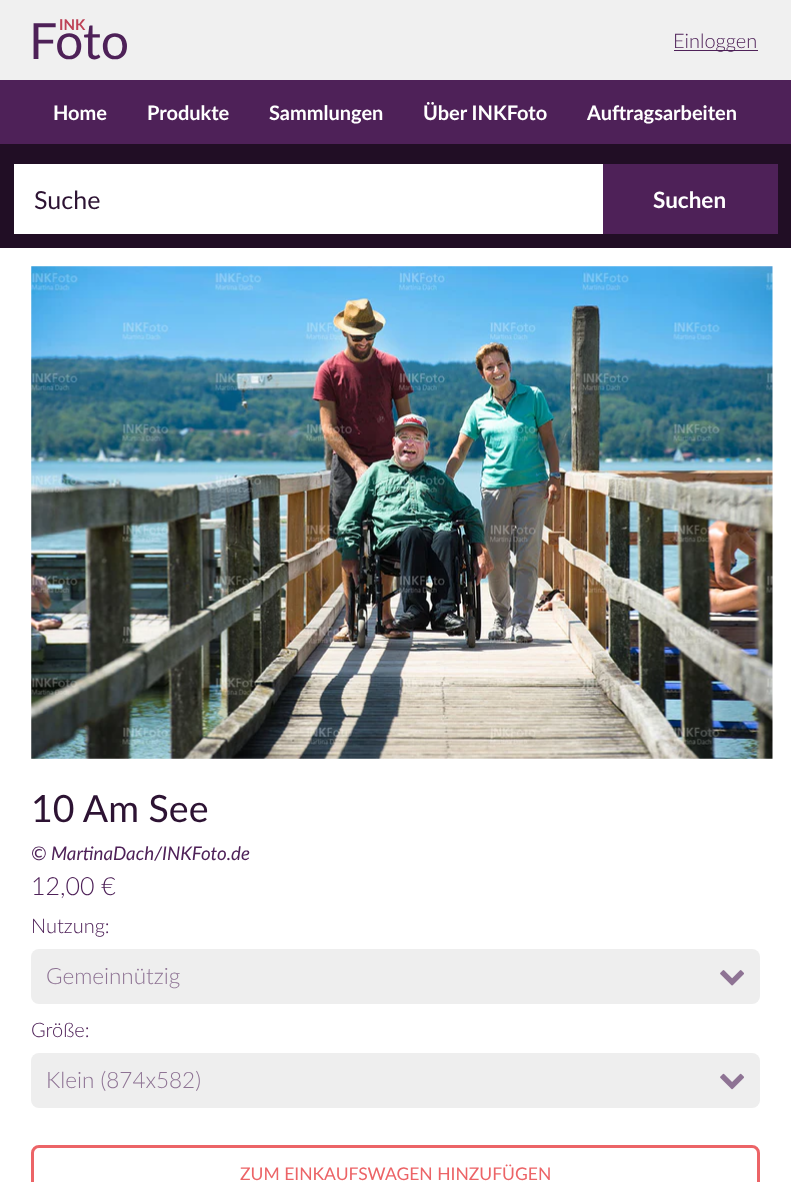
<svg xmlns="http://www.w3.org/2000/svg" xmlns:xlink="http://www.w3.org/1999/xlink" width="791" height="1182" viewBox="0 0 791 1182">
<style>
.cls-1{font:50px Lato;fill:#4e2158}
.cls-2{font:bold 15px Lato;fill:#be4257}
.cls-3{font:300 20px Lato;fill:#4e2158}
.cls-4{font:bold 20px Lato;fill:#ffffff}
.cls-5{font:25px Lato;fill:#2d1333}
.cls-6{font:bold 22.5px Lato;fill:#ffffff}
.cls-7{font:37.5px Lato;fill:#2d1333}
.cls-8{font:italic 18.75px Lato;fill:#4e2158}
.cls-9{font:300 25px Lato;fill:#4e2158}
.cls-10{font:300 22.5px Lato;fill:#8e7394}
.cls-11{font:17.5px Lato;fill:#ec6467}
</style>
<rect width="100%" height="100%" fill="#ffffff"/>
<rect fill="#f0f0f0" x="0" y="0" width="791" height="80"/>
<rect fill="#4e2158" x="674" y="50" width="84" height="1"/>
<rect fill="#4e2158" x="0" y="80" width="791" height="64"/>
<rect fill="#210e25" x="0" y="144" width="791" height="104"/>
<rect fill="#ffffff" x="14" y="164" width="589" height="70"/>
<rect fill="#4e2158" x="603" y="164" width="175" height="70"/>
<image xlink:href="image0.png" x="31" y="266" width="742" height="493"/>
<rect fill="#eeeeee" x="31" y="949" width="729" height="55" rx="8"/>
<image xlink:href="image1.png" x="720" y="970" width="24" height="16"/>
<rect fill="#eeeeee" x="31" y="1053" width="729" height="55" rx="8"/>
<image xlink:href="image2.png" x="720" y="1073" width="24" height="17"/>
<rect fill="none" stroke="#ec6467" stroke-width="3" x="32.5" y="1146.5" width="726" height="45" rx="6.5"/>
<text class="cls-1" x="29" y="59">Foto</text>
<text class="cls-2" x="59" y="30">INK</text>
<text class="cls-3" x="673" y="48">Einloggen</text>
<text class="cls-4" x="53" y="120">Home</text>
<text class="cls-4" x="147" y="120">Produkte</text>
<text class="cls-4" x="269" y="120">Sammlungen</text>
<text class="cls-4" x="423" y="120">Über INKFoto</text>
<text class="cls-4" x="587" y="120">Auftragsarbeiten</text>
<text class="cls-5" x="34" y="209">Suche</text>
<text class="cls-6" x="653" y="208">Suchen</text>
<text class="cls-7" x="31" y="822">10 Am See</text>
<text class="cls-8" x="31" y="860">© MartinaDach/INKFoto.de</text>
<text class="cls-9" x="31" y="895">12,00 €</text>
<text class="cls-3" x="31" y="933">Nutzung:</text>
<text class="cls-10" x="46" y="984">Gemeinnützig</text>
<text class="cls-3" x="31" y="1037">Größe:</text>
<text class="cls-10" x="46" y="1088">Klein (874x582)</text>
<text class="cls-11" x="240" y="1180">ZUM EINKAUFSWAGEN HINZUFÜGEN</text>
</svg>
